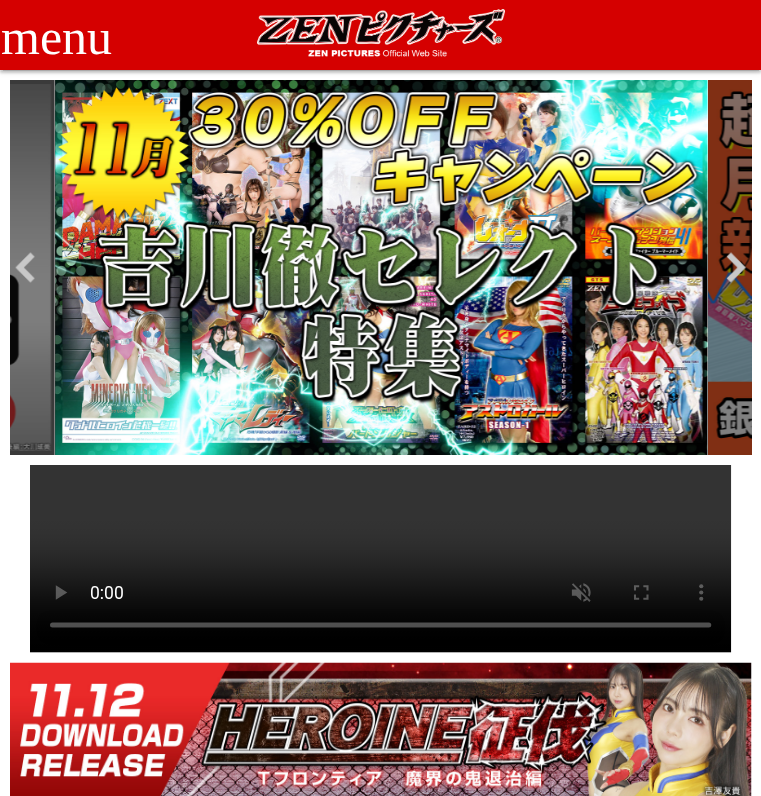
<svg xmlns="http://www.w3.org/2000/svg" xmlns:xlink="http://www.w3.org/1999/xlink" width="761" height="796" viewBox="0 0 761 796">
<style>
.cls-1{font:50px Liberation Serif;fill:#ffffff}
</style>
<rect width="100%" height="100%" fill="#ffffff"/>
<rect fill="#000000" fill-opacity="0.2" filter="blur(3px)" x="0" y="1" width="761" height="70"/>
<rect fill="#000000" fill-opacity="0.12" filter="blur(0.5px)" x="3" y="6" width="756" height="65"/>
<rect fill="#000000" fill-opacity="0.14" filter="blur(1px)" x="0" y="3" width="761" height="70"/>
<rect fill="#d50000" x="0" y="0" width="761" height="70"/>
<image xlink:href="image0.png" x="257" y="9" width="248" height="48"/>
<image xlink:href="image2.png" x="55" y="80" width="653" height="375"/>
<image xlink:href="image1.png" x="10" y="80" width="46" height="375"/>
<image xlink:href="image3.png" x="708" y="80" width="44" height="375"/>
<image xlink:href="image4.png" x="15" y="252" width="20" height="31"/>
<image xlink:href="image5.png" x="726" y="252" width="21" height="31"/>
<image xlink:href="image6.png" x="30" y="465" width="702" height="188"/>
<image xlink:href="image7.png" x="10" y="662" width="742" height="134"/>
<text class="cls-1" x="1" y="54">menu</text>
</svg>
